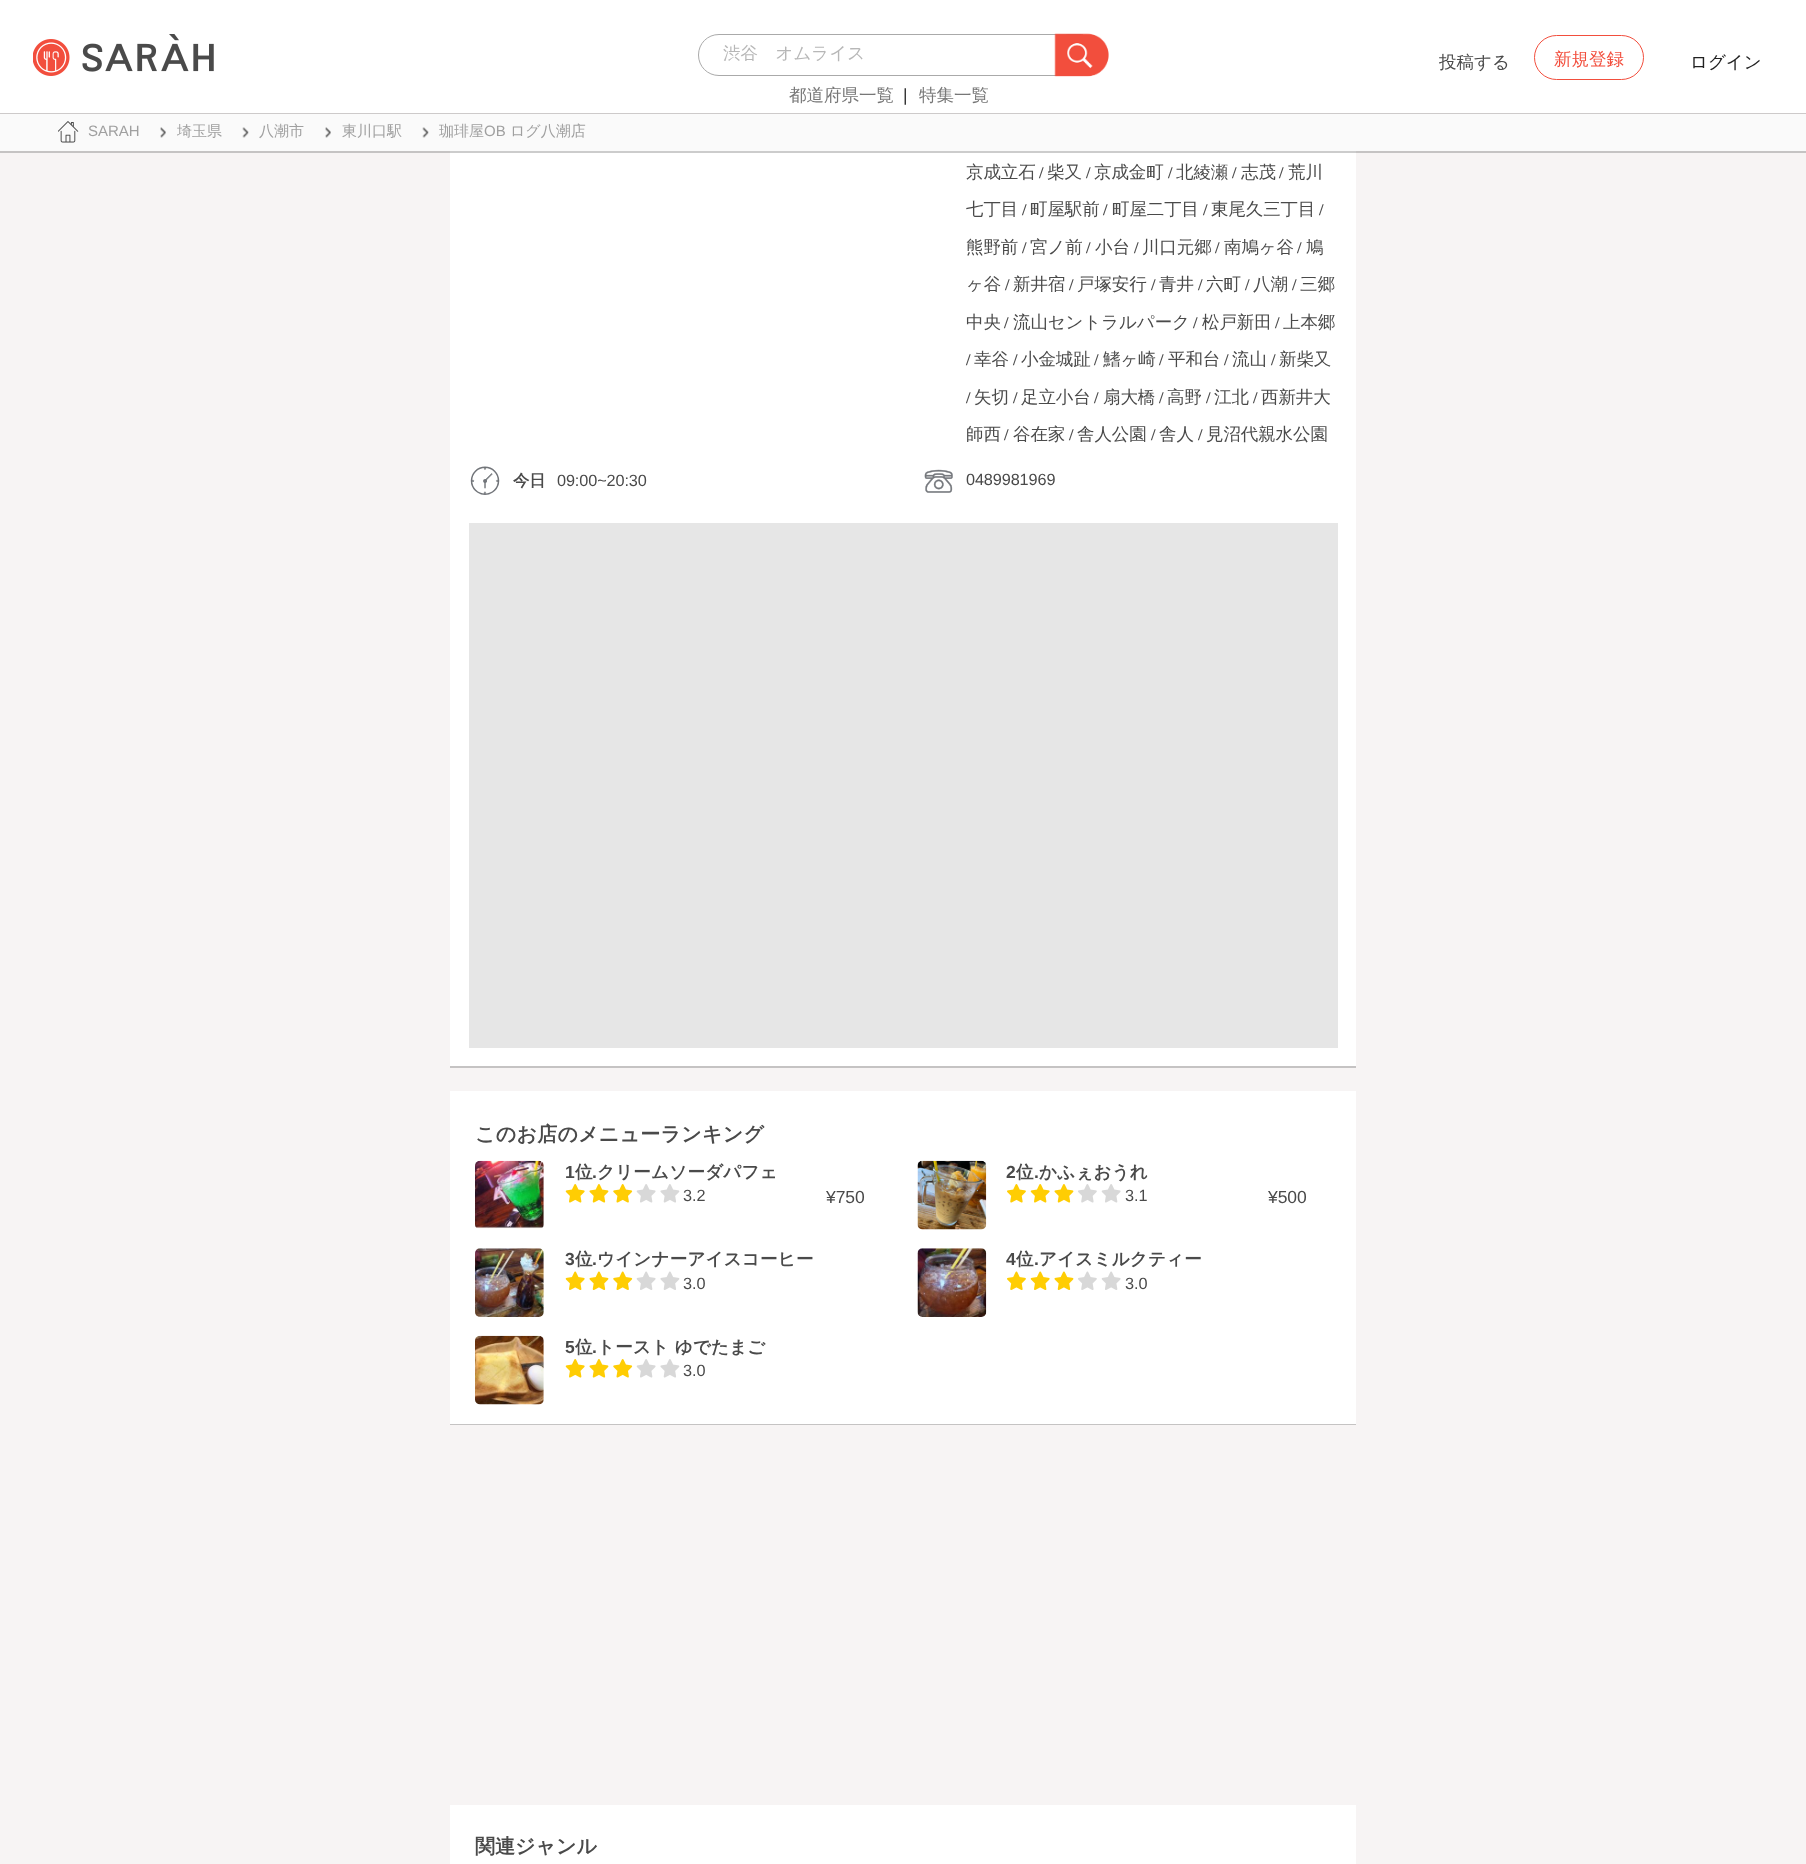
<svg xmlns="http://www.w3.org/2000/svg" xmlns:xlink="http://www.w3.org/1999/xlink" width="1806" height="1864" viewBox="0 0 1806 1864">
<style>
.cls-1{font:500 17.5px WenQuanYi Zen Hei;fill:#b7b7b7}
.cls-2{font:500 17.5px WenQuanYi Zen Hei;fill:#777777}
.cls-3{font:17.5px Liberation Sans;fill:#333333}
.cls-4{font:500 17.5px WenQuanYi Zen Hei;fill:#4a4a4a}
.cls-5{font:500 17.5px WenQuanYi Zen Hei;fill:#f24e3d}
.cls-6{font:500 17.5px WenQuanYi Zen Hei;fill:#212121}
.cls-7{font:15px Liberation Sans;fill:#a0a0a0}
.cls-8{font:500 15px WenQuanYi Zen Hei;fill:#a0a0a0}
.cls-9{font:500 17.5px WenQuanYi Zen Hei;letter-spacing:-0.1px;fill:#4a4a4a}
.cls-10{font:bold 16.25px Liberation Serif;letter-spacing:-0.1px;fill:#4a4a4a}
.cls-11{font:bold 16.25px WenQuanYi Zen Hei;letter-spacing:-0.1px;fill:#4a4a4a}
.cls-12{font:16.25px Liberation Sans;letter-spacing:-0.1px;fill:#4a4a4a}
.cls-13{font:bold 20px WenQuanYi Zen Hei;letter-spacing:0.25px;fill:#4a4a4a}
.cls-14{font:bold 17.5px Liberation Sans;letter-spacing:0.25px;fill:#4a4a4a}
.cls-15{font:bold 17.5px WenQuanYi Zen Hei;letter-spacing:0.25px;fill:#4a4a4a}
.cls-16{font:16.25px Liberation Sans;fill:#4a4a4a}
.cls-17{font:17.5px Liberation Sans;letter-spacing:-0.1px;fill:#4a4a4a}
.cls-18{font:bold 20px WenQuanYi Zen Hei;fill:#4a4a4a}
</style>
<rect width="100%" height="100%" fill="#f7f4f4"/>
<rect fill="#000000" fill-opacity="0.2" filter="blur(0.5px)" x="450" y="-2" width="906" height="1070"/>
<rect fill="#ffffff" x="450" y="151" width="906" height="915"/>
<rect fill="#000000" fill-opacity="0.2" filter="blur(0.5px)" x="0" y="115" width="1806" height="38"/>
<rect fill="#ffffff" x="0" y="0" width="1806" height="113"/>
<rect fill="#cdcaca" x="0" y="113" width="1806" height="1"/>
<image xlink:href="image0.png" x="33" y="34" width="181" height="42"/>
<path fill="none" stroke="#aaaaaa" d="M719 34.5H1068.5V75.5H719C707.5 75.5 698.5 66.5 698.5 55C698.5 43.5 707.5 34.5 719 34.5Z"/>
<rect fill="none" stroke="#767676" x="1065.5" y="34.5" width="18" height="41" rx="2"/>
<image xlink:href="image1.png" x="1054" y="33" width="55" height="44"/>
<rect fill="none" stroke="#f24e3d" x="1534.5" y="35.5" width="109" height="44" rx="22"/>
<rect fill="#fafafa" x="0" y="114" width="1806" height="37"/>
<image xlink:href="image2.png" x="58" y="121" width="21" height="22"/>
<image xlink:href="image3.png" x="160" y="127" width="6" height="11"/>
<image xlink:href="image4.png" x="242" y="127" width="7" height="11"/>
<image xlink:href="image3.png" x="325" y="127" width="6" height="11"/>
<image xlink:href="image4.png" x="422" y="127" width="7" height="11"/>
<image xlink:href="image5.png" x="470" y="466" width="30" height="29"/>
<image xlink:href="image6.png" x="924" y="469" width="29" height="24"/>
<rect fill="#e6e6e6" x="469" y="523" width="869" height="525"/>
<rect fill="#000000" fill-opacity="0.2" filter="blur(0.5px)" x="450" y="1093" width="906" height="332"/>
<rect fill="#ffffff" x="450" y="1091" width="906" height="333"/>
<image xlink:href="image7.png" x="475" y="1160" width="69" height="69"/>
<image xlink:href="image8.png" x="565" y="1184" width="20" height="19"/>
<image xlink:href="image9.png" x="589" y="1184" width="20" height="19"/>
<image xlink:href="image10.png" x="613" y="1184" width="20" height="19"/>
<image xlink:href="image11.png" x="636" y="1184" width="20" height="19"/>
<image xlink:href="image12.png" x="660" y="1184" width="20" height="19"/>
<image xlink:href="image13.png" x="917" y="1160" width="70" height="70"/>
<image xlink:href="image14.png" x="1007" y="1184" width="19" height="19"/>
<image xlink:href="image8.png" x="1030" y="1184" width="20" height="19"/>
<image xlink:href="image9.png" x="1054" y="1184" width="20" height="19"/>
<image xlink:href="image15.png" x="1078" y="1184" width="19" height="19"/>
<image xlink:href="image11.png" x="1101" y="1184" width="20" height="19"/>
<image xlink:href="image16.png" x="475" y="1248" width="69" height="69"/>
<image xlink:href="image17.png" x="565" y="1271" width="20" height="19"/>
<image xlink:href="image18.png" x="589" y="1271" width="20" height="19"/>
<image xlink:href="image19.png" x="613" y="1271" width="20" height="19"/>
<image xlink:href="image20.png" x="636" y="1271" width="20" height="19"/>
<image xlink:href="image21.png" x="660" y="1271" width="20" height="19"/>
<image xlink:href="image22.png" x="917" y="1248" width="70" height="69"/>
<image xlink:href="image23.png" x="1007" y="1271" width="19" height="19"/>
<image xlink:href="image17.png" x="1030" y="1271" width="20" height="19"/>
<image xlink:href="image18.png" x="1054" y="1271" width="20" height="19"/>
<image xlink:href="image24.png" x="1078" y="1271" width="19" height="19"/>
<image xlink:href="image20.png" x="1101" y="1271" width="20" height="19"/>
<image xlink:href="image25.png" x="475" y="1335" width="69" height="70"/>
<image xlink:href="image8.png" x="565" y="1359" width="20" height="19"/>
<image xlink:href="image9.png" x="589" y="1359" width="20" height="19"/>
<image xlink:href="image10.png" x="613" y="1359" width="20" height="19"/>
<image xlink:href="image11.png" x="636" y="1359" width="20" height="19"/>
<image xlink:href="image12.png" x="660" y="1359" width="20" height="19"/>
<rect fill="#000000" fill-opacity="0.2" filter="blur(0.5px)" x="450" y="1806" width="906" height="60"/>
<rect fill="#ffffff" x="450" y="1805" width="906" height="59"/>
<text class="cls-1" x="723" y="59">渋谷　オムライス</text>
<text class="cls-2" x="789" y="101">都道府県一覧</text>
<text class="cls-3" x="903" y="101">|</text>
<text class="cls-2" x="919" y="101">特集一覧</text>
<text class="cls-4" x="1439" y="68">投稿する</text>
<text class="cls-5" x="1554" y="65">新規登録</text>
<text class="cls-6" x="1690" y="68">ログイン</text>
<text class="cls-7" x="88" y="136">SARAH</text>
<text class="cls-8" x="177" y="136">埼玉県</text>
<text class="cls-8" x="259" y="136">八潮市</text>
<text class="cls-8" x="342" y="136">東川口駅</text>
<text class="cls-8" x="439" y="136">珈琲屋</text>
<text class="cls-7" x="484" y="136">OB</text>
<text class="cls-8" x="510" y="136">ログ八潮店</text>
<text class="cls-9" x="966" y="178">京成立石</text>
<text class="cls-10" x="1039" y="178">/</text>
<text class="cls-9" x="1047" y="178">柴又</text>
<text class="cls-10" x="1086" y="178">/</text>
<text class="cls-9" x="1094" y="178">京成金町</text>
<text class="cls-10" x="1168" y="178">/</text>
<text class="cls-9" x="1176" y="178">北綾瀬</text>
<text class="cls-10" x="1232" y="178">/</text>
<text class="cls-9" x="1241" y="178">志茂</text>
<text class="cls-10" x="1279" y="178">/</text>
<text class="cls-9" x="1288" y="178">荒川</text>
<text class="cls-9" x="966" y="215">七丁目</text>
<text class="cls-10" x="1022" y="215">/</text>
<text class="cls-9" x="1030" y="215">町屋駅前</text>
<text class="cls-10" x="1103" y="215">/</text>
<text class="cls-9" x="1112" y="215">町屋二丁目</text>
<text class="cls-10" x="1203" y="215">/</text>
<text class="cls-9" x="1211" y="215">東尾久三丁目</text>
<text class="cls-10" x="1319" y="215">/</text>
<text class="cls-9" x="966" y="253">熊野前</text>
<text class="cls-10" x="1022" y="253">/</text>
<text class="cls-9" x="1030" y="253">宮ノ前</text>
<text class="cls-10" x="1086" y="253">/</text>
<text class="cls-9" x="1095" y="253">小台</text>
<text class="cls-10" x="1134" y="253">/</text>
<text class="cls-9" x="1142" y="253">川口元郷</text>
<text class="cls-10" x="1215" y="253">/</text>
<text class="cls-9" x="1224" y="253">南鳩ヶ谷</text>
<text class="cls-10" x="1297" y="253">/</text>
<text class="cls-9" x="1306" y="253">鳩</text>
<text class="cls-9" x="966" y="290">ヶ谷</text>
<text class="cls-10" x="1005" y="290">/</text>
<text class="cls-9" x="1013" y="290">新井宿</text>
<text class="cls-10" x="1069" y="290">/</text>
<text class="cls-9" x="1077" y="290">戸塚安行</text>
<text class="cls-10" x="1151" y="290">/</text>
<text class="cls-9" x="1159" y="290">青井</text>
<text class="cls-10" x="1198" y="290">/</text>
<text class="cls-9" x="1206" y="290">六町</text>
<text class="cls-10" x="1245" y="290">/</text>
<text class="cls-9" x="1253" y="290">八潮</text>
<text class="cls-10" x="1292" y="290">/</text>
<text class="cls-9" x="1300" y="290">三郷</text>
<text class="cls-9" x="966" y="328">中央</text>
<text class="cls-10" x="1004" y="328">/</text>
<text class="cls-9" x="1013" y="328">流山セントラルパーク</text>
<text class="cls-10" x="1193" y="328">/</text>
<text class="cls-9" x="1202" y="328">松戸新田</text>
<text class="cls-10" x="1275" y="328">/</text>
<text class="cls-9" x="1283" y="328">上本郷</text>
<text class="cls-10" x="966" y="365">/</text>
<text class="cls-9" x="974" y="365">幸谷</text>
<text class="cls-10" x="1013" y="365">/</text>
<text class="cls-9" x="1021" y="365">小金城趾</text>
<text class="cls-10" x="1094" y="365">/</text>
<text class="cls-9" x="1103" y="365">鰭ヶ崎</text>
<text class="cls-10" x="1159" y="365">/</text>
<text class="cls-9" x="1168" y="365">平和台</text>
<text class="cls-10" x="1224" y="365">/</text>
<text class="cls-9" x="1232" y="365">流山</text>
<text class="cls-10" x="1271" y="365">/</text>
<text class="cls-9" x="1279" y="365">新柴又</text>
<text class="cls-10" x="966" y="403">/</text>
<text class="cls-9" x="974" y="403">矢切</text>
<text class="cls-10" x="1013" y="403">/</text>
<text class="cls-9" x="1021" y="403">足立小台</text>
<text class="cls-10" x="1094" y="403">/</text>
<text class="cls-9" x="1103" y="403">扇大橋</text>
<text class="cls-10" x="1159" y="403">/</text>
<text class="cls-9" x="1167" y="403">高野</text>
<text class="cls-10" x="1206" y="403">/</text>
<text class="cls-9" x="1214" y="403">江北</text>
<text class="cls-10" x="1253" y="403">/</text>
<text class="cls-9" x="1261" y="403">西新井大</text>
<text class="cls-9" x="966" y="440">師西</text>
<text class="cls-10" x="1004" y="440">/</text>
<text class="cls-9" x="1013" y="440">谷在家</text>
<text class="cls-10" x="1069" y="440">/</text>
<text class="cls-9" x="1077" y="440">舎人公園</text>
<text class="cls-10" x="1151" y="440">/</text>
<text class="cls-9" x="1159" y="440">舎人</text>
<text class="cls-10" x="1198" y="440">/</text>
<text class="cls-9" x="1206" y="440">見沼代親水公園</text>
<text class="cls-11" x="513" y="486">今日</text>
<text class="cls-12" x="557" y="486">09:00~20:30</text>
<text class="cls-12" x="966" y="485">0489981969</text>
<text class="cls-13" x="475" y="1141">このお店のメニューランキング</text>
<text class="cls-14" x="565" y="1178">1</text>
<text class="cls-15" x="575" y="1178">位</text>
<text class="cls-14" x="592" y="1178">.</text>
<text class="cls-15" x="597" y="1178">クリームソーダパフェ</text>
<text class="cls-16" x="683" y="1201">3.2</text>
<text class="cls-17" x="826" y="1203">¥750</text>
<text class="cls-14" x="1006" y="1178">2</text>
<text class="cls-15" x="1016" y="1178">位</text>
<text class="cls-14" x="1034" y="1178">.</text>
<text class="cls-15" x="1039" y="1178">かふぇおうれ</text>
<text class="cls-16" x="1125" y="1201">3.1</text>
<text class="cls-17" x="1268" y="1203">¥500</text>
<text class="cls-14" x="565" y="1265">3</text>
<text class="cls-15" x="575" y="1265">位</text>
<text class="cls-14" x="592" y="1265">.</text>
<text class="cls-15" x="597" y="1265">ウインナーアイスコーヒー</text>
<text class="cls-16" x="683" y="1289">3.0</text>
<text class="cls-14" x="1006" y="1265">4</text>
<text class="cls-15" x="1016" y="1265">位</text>
<text class="cls-14" x="1034" y="1265">.</text>
<text class="cls-15" x="1039" y="1265">アイスミルクティー</text>
<text class="cls-16" x="1125" y="1289">3.0</text>
<text class="cls-14" x="565" y="1353">5</text>
<text class="cls-15" x="575" y="1353">位</text>
<text class="cls-14" x="592" y="1353">.</text>
<text class="cls-15" x="597" y="1353">トースト ゆでたまご</text>
<text class="cls-16" x="683" y="1376">3.0</text>
<text class="cls-18" x="475" y="1853">関連ジャンル</text>
</svg>
